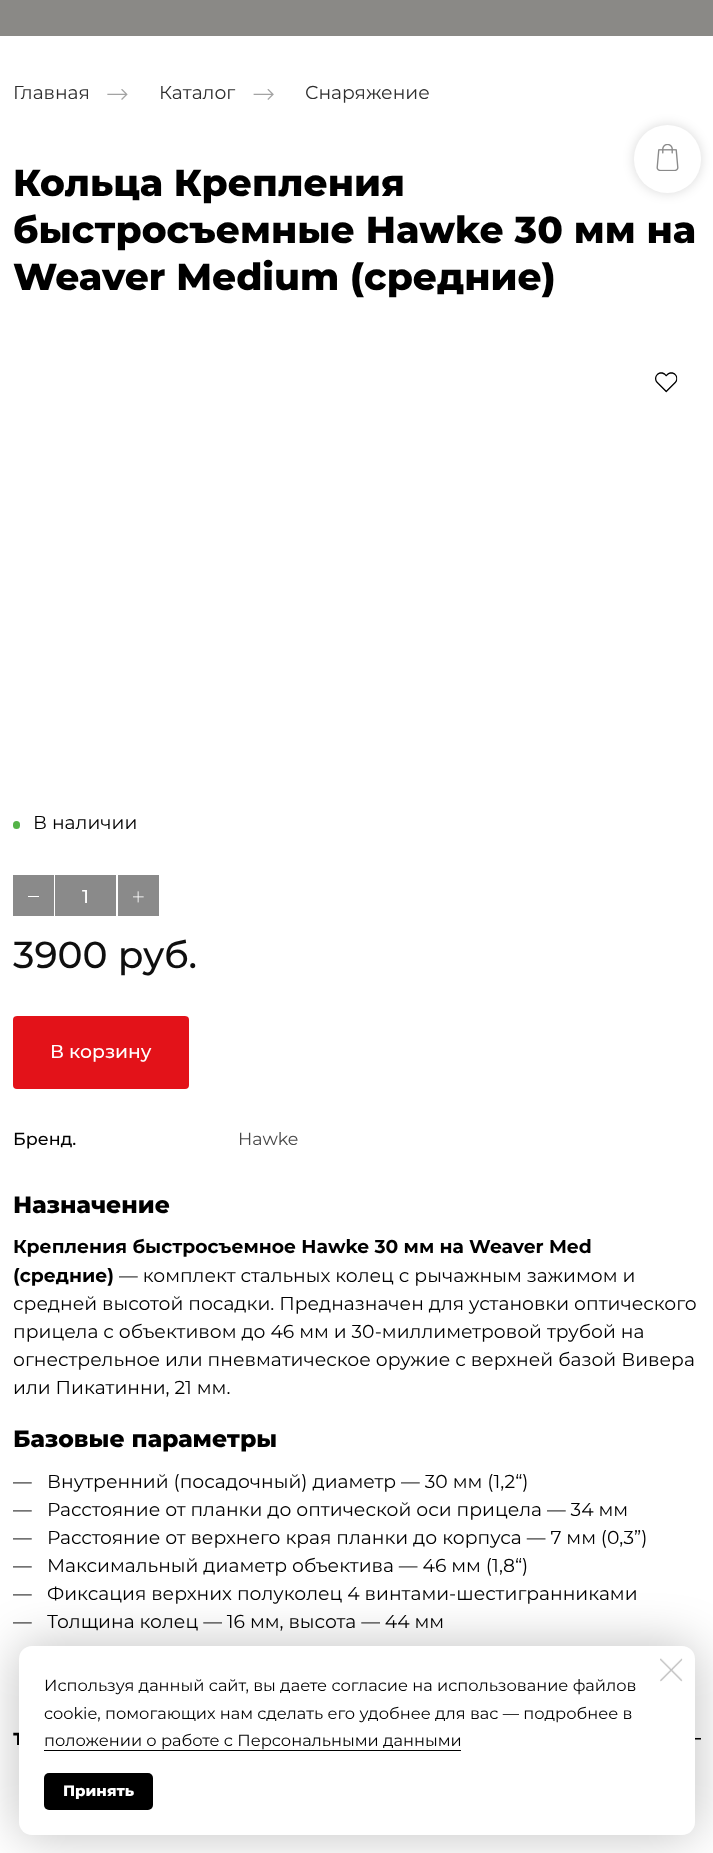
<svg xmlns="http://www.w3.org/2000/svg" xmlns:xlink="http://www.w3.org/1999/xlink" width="713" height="1853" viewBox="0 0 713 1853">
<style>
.cls-1{font:18.75px Montserrat;fill:#2e2e2e}
.cls-2{font:800 37.5px Montserrat;fill:#000000}
.cls-3{font:18.75px Montserrat;fill:#000000}
.cls-4{font:500 18.75px Montserrat;fill:#ffffff}
.cls-5{font:500 37.5px Montserrat;fill:#0f0f0f}
.cls-6{font:500 17.5px Montserrat;fill:#000000}
.cls-7{font:17.5px Montserrat;fill:#474747}
.cls-8{font:800 23.5px Montserrat;fill:#000000}
.cls-9{font:bold 18.75px Montserrat;fill:#000000}
.cls-10{font:800 17.5px Montserrat;fill:#000000}
.cls-11{font:16.25px Montserrat;fill:#000000}
.cls-12{font:800 15px Montserrat;fill:#ffffff}
</style>
<rect width="100%" height="100%" fill="#ffffff"/>
<rect fill="#8a8986" x="0" y="0" width="713" height="36"/>
<rect fill="#000000" fill-opacity="0.15" filter="blur(6px)" x="634" y="125" width="67" height="68" rx="33.5"/>
<rect fill="#ffffff" x="634" y="125" width="67" height="68" rx="33.5"/>
<image xlink:href="image0.png" x="656" y="144" width="23" height="27"/>
<image xlink:href="image1.png" x="107" y="89" width="21" height="11"/>
<image xlink:href="image2.png" x="253" y="89" width="21" height="11"/>
<image xlink:href="image3.png" x="655" y="372" width="23" height="21"/>
<rect fill="#54b348" x="13" y="821" width="7" height="8" rx="3.5"/>
<rect fill="#8a8a8a" x="13" y="875" width="41" height="41"/>
<rect fill="#ffffff" x="28" y="896" width="11" height="1"/>
<rect fill="#8a8a8a" x="55" y="875" width="61" height="41"/>
<rect fill="#8a8a8a" x="118" y="875" width="41" height="41"/>
<image xlink:href="image4.png" x="133" y="891" width="11" height="12"/>
<rect fill="#e31219" x="13" y="1016" width="176" height="73" rx="4"/>
<image xlink:href="image5.png" x="695" y="1737" width="6" height="3"/>
<rect fill="#000000" fill-opacity="0.25" filter="blur(25px)" x="19" y="1646" width="676" height="189" rx="13"/>
<text class="cls-1" x="13" y="99">Главная</text>
<text class="cls-1" x="159" y="99">Каталог</text>
<text class="cls-1" x="305" y="99">Снаряжение</text>
<text class="cls-2"><tspan x="13" y="196">Кольца Крепления</tspan><tspan x="13" y="243">быстросъемные Hawke 30 мм на</tspan><tspan x="13" y="290">Weaver Medium (средние)</tspan></text>
<text class="cls-3" x="33" y="829">В наличии</text>
<text class="cls-4" x="82" y="903">1</text>
<text class="cls-5" x="13" y="968">3900 руб.</text>
<text class="cls-4" x="50" y="1058">В корзину</text>
<text class="cls-6" x="13" y="1145">Бренд.</text>
<text class="cls-7" x="238" y="1145">Hawke</text>
<text class="cls-8" x="13" y="1213">Назначение</text>
<text class="cls-9"><tspan x="13" y="1253">Крепления быстросъемное Hawke 30 мм на Weaver Med</tspan><tspan x="13" y="1282">(средние)</tspan></text>
<text class="cls-3" x="119" y="1282">— комплект стальных колец с рычажным зажимом и</text>
<text class="cls-3"><tspan x="13" y="1310">средней высотой посадки. Предназначен для установки оптического</tspan><tspan x="13" y="1338">прицела с объективом до 46 мм и 30-миллиметровой трубой на</tspan><tspan x="13" y="1366">огнестрельное или пневматическое оружие с верхней базой Вивера</tspan><tspan x="13" y="1394">или Пикатинни, 21 мм.</tspan></text>
<text class="cls-8" x="13" y="1447">Базовые параметры</text>
<text class="cls-3" x="13" y="1488">—</text>
<text class="cls-3" x="47" y="1488">Внутренний (посадочный) диаметр — 30 мм (1,2“)</text>
<text class="cls-3" x="13" y="1516">—</text>
<text class="cls-3" x="47" y="1516">Расстояние от планки до оптической оси прицела — 34 мм</text>
<text class="cls-3" x="13" y="1544">—</text>
<text class="cls-3" x="47" y="1544">Расстояние от верхнего края планки до корпуса — 7 мм (0,3”)</text>
<text class="cls-3" x="13" y="1572">—</text>
<text class="cls-3" x="47" y="1572">Максимальный диаметр объектива — 46 мм (1,8“)</text>
<text class="cls-3" x="13" y="1600">—</text>
<text class="cls-3" x="47" y="1600">Фиксация верхних полуколец 4 винтами-шестигранниками</text>
<text class="cls-3" x="13" y="1628">—</text>
<text class="cls-3" x="47" y="1628">Толщина колец — 16 мм, высота — 44 мм</text>
<text class="cls-10" x="13" y="1745">Т</text>
<rect fill="#ffffff" x="19" y="1646" width="676" height="189" rx="13"/>
<image xlink:href="image6.png" x="660" y="1658" width="23" height="24"/>
<text class="cls-11"><tspan x="44" y="1691">Используя данный сайт, вы даете согласие на использование файлов</tspan><tspan x="44" y="1719">cookie, помогающих нам сделать его удобнее для вас — подробнее в</tspan><tspan x="44" y="1746">положении о работе с Персональными данными</tspan></text>
<rect fill="#000000" x="44" y="1750" width="417" height="1"/>
<rect fill="#000000" x="44" y="1773" width="109" height="37" rx="5"/>
<text class="cls-12" x="63" y="1796">Принять</text>
</svg>
